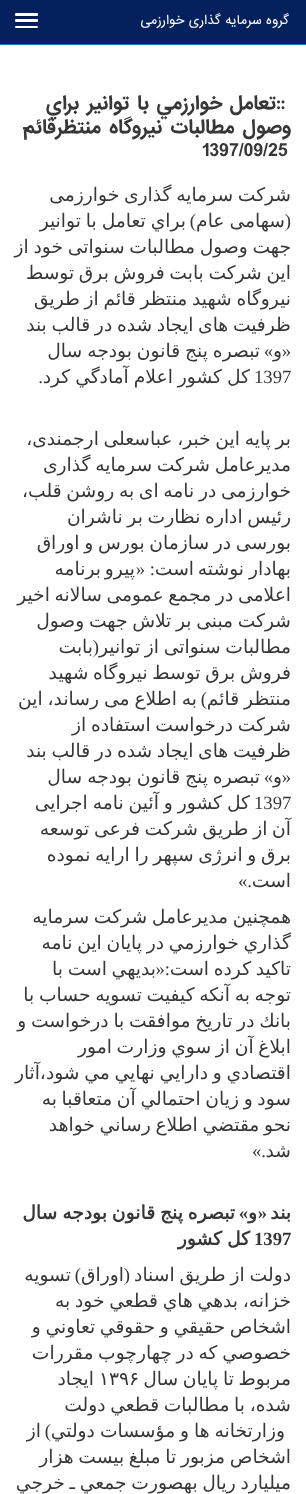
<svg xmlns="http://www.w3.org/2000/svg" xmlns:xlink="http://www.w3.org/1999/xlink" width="306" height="1494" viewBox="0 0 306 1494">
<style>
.cls-1{font:12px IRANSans;direction:rtl;fill:#ffffff}
.cls-2{font:bold 18px IRANSans;letter-spacing:-0.35px;fill:#373737}
.cls-3{font:bold 18px IRANSans;letter-spacing:-0.35px;direction:rtl;fill:#373737}
.cls-4{font:18.7px DejaVu Sans;direction:rtl;fill:#373737}
.cls-5{font:18.7px Liberation Serif;direction:rtl;fill:#373737}
.cls-6{font:18.7px Liberation Serif;fill:#373737}
.cls-7{font:bold 18.7px DejaVu Sans;direction:rtl;fill:#373737}
.cls-8{font:bold 18.7px Liberation Serif;direction:rtl;fill:#373737}
.cls-9{font:bold 18.7px Liberation Serif;fill:#373737}
.cls-10{font:18.7px DejaVu Sans;fill:#373737}
</style>
<rect width="100%" height="100%" fill="#ffffff"/>
<rect fill="#05215d" x="0" y="0" width="306" height="44"/>
<rect fill="#2676ae" x="0" y="44" width="306" height="1"/>
<path fill="#041946" d="M15 15C15 18 16.5 17 19.5 17H33.5C36.5 17 38 18 38 15C38 15.5 37.5 16 37 16H16C15.5 16 15 15.5 15 15Z"/>
<rect fill="#ffffff" x="15" y="13" width="23" height="3" rx="1"/>
<path fill="#041946" d="M15 21C15 24 16.5 23 19.5 23H33.5C36.5 23 38 24 38 21C38 21.5 37.5 22 37 22H16C15.5 22 15 21.5 15 21Z"/>
<rect fill="#ffffff" x="15" y="19" width="23" height="3" rx="1"/>
<path fill="#041946" d="M15 27.5C15 28 15 29 16 29H37.5C38 28.5 38 28 38 27.5L37 28C34.5 28 16 28.5 15 27.5Z"/>
<rect fill="#ffffff" x="15" y="26" width="23" height="2" rx="1"/>
<text class="cls-1" x="289" y="24">گروه سرمایه گذاری خوارزمی</text>
<text class="cls-2" x="276" y="109">::</text>
<text class="cls-3" x="276" y="109" word-spacing="2.5">تعامل خوارزمي با توانير براي</text>
<text class="cls-3" x="291" y="133" word-spacing="3.5">وصول مطالبات نيروگاه منتظرقائم</text>
<text class="cls-2" x="22" y="133">-</text>
<text class="cls-2" x="202" y="156">1397/09/25</text>
<text class="cls-4" x="291" y="201" word-spacing="-1.25">شرکت سرمایه گذاری خوارزمی</text>
<text class="cls-5" x="291" y="227">(</text>
<text class="cls-4" x="285" y="227" word-spacing="-1">سهامی عام</text>
<text class="cls-5" x="196" y="227">)</text>
<text class="cls-4" x="186" y="227" word-spacing="-1">براي تعامل با توانير</text>
<text class="cls-4"><tspan x="291" y="253" word-spacing="-1.25">جهت وصول مطالبات سنواتی خود از</tspan><tspan x="291" y="279" word-spacing="-1.25">اين شركت بابت فروش برق توسط</tspan><tspan x="291" y="305" word-spacing="-1.25">نیروگاه شهید منتظر قائم از طریق</tspan><tspan x="291" y="331" word-spacing="-1.25">ظرفیت های ایجاد شده در قالب بند</tspan></text>
<text class="cls-5" x="291" y="357">«</text>
<text class="cls-5" x="273" y="357">»</text>
<text class="cls-4" x="282" y="357">و</text>
<text class="cls-4" x="260" y="357" word-spacing="-1">تبصره پنج قانون بودجه سال</text>
<text class="cls-6" x="254" y="383">1397</text>
<text class="cls-4" x="250" y="383" word-spacing="-1">کل کشور اعلام آمادگي كرد</text>
<text class="cls-5" x="43" y="383">.</text>
<text class="cls-4"><tspan x="291" y="445" word-spacing="-1.25">بر پایه این خبر، عباسعلی ارجمندی،</tspan><tspan x="291" y="471" word-spacing="-1.25">مدیرعامل شرکت سرمایه گذاری</tspan><tspan x="291" y="497" word-spacing="-1.25">خوارزمی در نامه ای به روشن قلب،</tspan><tspan x="291" y="523" word-spacing="-1.25">رئیس اداره نظارت بر ناشران</tspan><tspan x="291" y="549" word-spacing="-1.25">بورسی در سازمان بورس و اوراق</tspan><tspan x="291" y="575">بهادار</tspan></text>
<text class="cls-4" x="244" y="575">نوشته</text>
<text class="cls-4" x="194" y="575">است</text>
<text class="cls-5" x="155" y="575">: «</text>
<text class="cls-4" x="135" y="575">پیرو</text>
<text class="cls-4" x="101" y="575">برنامه</text>
<text class="cls-4"><tspan x="291" y="601" word-spacing="-1.25">اعلامی در مجمع عمومی سالانه اخیر</tspan><tspan x="291" y="627" word-spacing="-1.25">شرکت مبنی بر تلاش جهت وصول</tspan></text>
<text class="cls-5" x="99" y="653">(</text>
<text class="cls-4" x="291" y="653" word-spacing="-1.25">مطالبات سنواتی از توانیر</text>
<text class="cls-4" x="93" y="653">بابت</text>
<text class="cls-4"><tspan x="291" y="679" word-spacing="-1.25">فروش برق توسط نیروگاه شهید</tspan><tspan x="291" y="705" word-spacing="-1">منتظر قائم</tspan></text>
<text class="cls-5" x="207" y="705">)</text>
<text class="cls-4" x="197" y="705" word-spacing="-1">به اطلاع می رساند، این</text>
<text class="cls-4"><tspan x="291" y="731" word-spacing="-1.25">شرکت درخواست استفاده از</tspan><tspan x="291" y="757" word-spacing="-1.25">ظرفیت های ایجاد شده در قالب بند</tspan></text>
<text class="cls-5" x="291" y="783">«</text>
<text class="cls-5" x="273" y="783">»</text>
<text class="cls-4" x="282" y="783">و</text>
<text class="cls-4" x="260" y="783" word-spacing="-1">تبصره پنج قانون بودجه سال</text>
<text class="cls-4" x="250" y="809" word-spacing="-1">کل کشور و آئین نامه اجرایی</text>
<text class="cls-6" x="254" y="809">1397</text>
<text class="cls-4"><tspan x="291" y="835" word-spacing="-1.25">آن از طریق شرکت فرعی توسعه</tspan><tspan x="291" y="861" word-spacing="-1.25">برق و انرژی سپهر را ارایه نموده</tspan><tspan x="291" y="887">است</tspan></text>
<text class="cls-5" x="252" y="887">.»</text>
<text class="cls-4"><tspan x="291" y="923" word-spacing="-1.25">همچنين مديرعامل شركت سرمايه</tspan><tspan x="291" y="949" word-spacing="-1.25">گذاري خوارزمي در پايان اين نامه</tspan><tspan x="291" y="975" word-spacing="-1.25">تاكيد كرده است</tspan></text>
<text class="cls-5" x="170" y="975">:«</text>
<text class="cls-4" x="156" y="975" word-spacing="-1.25">بديهي است با</text>
<text class="cls-4"><tspan x="291" y="1001" word-spacing="-1.25">توجه به آنكه كيفيت تسويه حساب با</tspan><tspan x="291" y="1027" word-spacing="-1.25">بانك در تاريخ موافقت با درخواست و</tspan><tspan x="291" y="1053" word-spacing="-1.25">ابلاغ آن از سوي وزارت امور</tspan><tspan x="291" y="1079" word-spacing="-1.25">اقتصادي و دارايي نهايي مي شود،</tspan></text>
<text class="cls-4" x="40" y="1079">آثار</text>
<text class="cls-4"><tspan x="291" y="1105" word-spacing="-1.25">سود و زيان احتمالي آن متعاقبا به</tspan><tspan x="291" y="1131" word-spacing="-1.25">نحو مقتضي اطلاع رساني خواهد</tspan><tspan x="291" y="1157">شد</tspan></text>
<text class="cls-5" x="266" y="1157">.»</text>
<text class="cls-7" x="291" y="1219">بند</text>
<text class="cls-8" x="267" y="1219">«</text>
<text class="cls-8" x="248" y="1219">»</text>
<text class="cls-7" x="257" y="1219">و</text>
<text class="cls-7" x="235" y="1219" word-spacing="-1">تبصره پنج قانون بودجه سال</text>
<text class="cls-9" x="254" y="1245">1397</text>
<text class="cls-7" x="250" y="1245" word-spacing="-1">کل کشور</text>
<text class="cls-4" x="291" y="1281" word-spacing="-1">دولت از طريق اسناد</text>
<text class="cls-5" x="130" y="1281">(</text>
<text class="cls-4" x="124" y="1281">اوراق</text>
<text class="cls-5" x="81" y="1281">)</text>
<text class="cls-4" x="71" y="1281">تسويه</text>
<text class="cls-4"><tspan x="291" y="1307" word-spacing="-1.25">خزانه، بدهي هاي قطعي خود به</tspan><tspan x="291" y="1333" word-spacing="-1.25">اشخاص حقيقي و حقوقي تعاوني و</tspan><tspan x="291" y="1359" word-spacing="-1.25">خصوصي که در چهارچوب مقررات</tspan><tspan x="291" y="1385" word-spacing="-1.25">مربوط تا پايان سال</tspan></text>
<text class="cls-10" x="99" y="1385">۱۳۹۶</text>
<text class="cls-4" x="94" y="1385">ايجاد</text>
<text class="cls-4" x="291" y="1411" word-spacing="-1.25">شده، با مطالبات قطعي دولت</text>
<text class="cls-4" x="285" y="1437" word-spacing="-1">وزارتخانه ها و مؤسسات دولتي</text>
<text class="cls-5" x="51" y="1437">)</text>
<text class="cls-4" x="41" y="1437">از</text>
<text class="cls-4"><tspan x="291" y="1463" word-spacing="-1.25">اشخاص مزبور تا مبلغ بيست هزار</tspan><tspan x="291" y="1489" word-spacing="-1.25">ميليارد ريال بهصورت جمعي ـ خرجي</tspan></text>
</svg>
